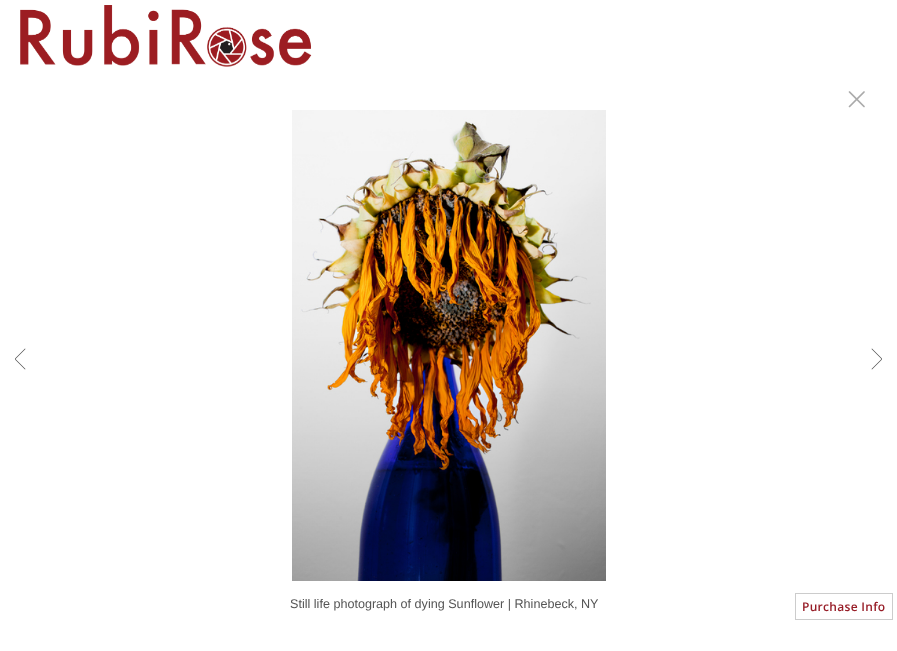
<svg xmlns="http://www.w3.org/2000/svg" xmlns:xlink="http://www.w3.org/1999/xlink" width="897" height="651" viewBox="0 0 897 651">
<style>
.cls-1{font:12.6px Liberation Sans;fill:#555555}
.cls-2{font:600 12px Open Sans;letter-spacing:0.3px;fill:#971d27}
</style>
<rect width="100%" height="100%" fill="#ffffff"/>
<image xlink:href="image0.png" x="20" y="5" width="292" height="62"/>
<image xlink:href="image1.png" x="848" y="91" width="17" height="17"/>
<image xlink:href="image2.png" x="292" y="110" width="314" height="471"/>
<path fill="#555555" d="M15 358.5V359.5L25 369.5L25.5 369L15.5 359L25.5 349L25 348.5Z"/>
<path fill="#555555" d="M882 358.5V359.5L872 369.5L871.5 369L881.5 359L871.5 349L872 348.5Z"/>
<rect fill="none" stroke="#cccccc" x="795.5" y="593.5" width="97" height="26"/>
<text class="cls-1" x="290" y="608">Still life photograph of dying Sunflower | Rhinebeck, NY</text>
<text class="cls-2" x="802" y="611">Purchase Info</text>
</svg>
